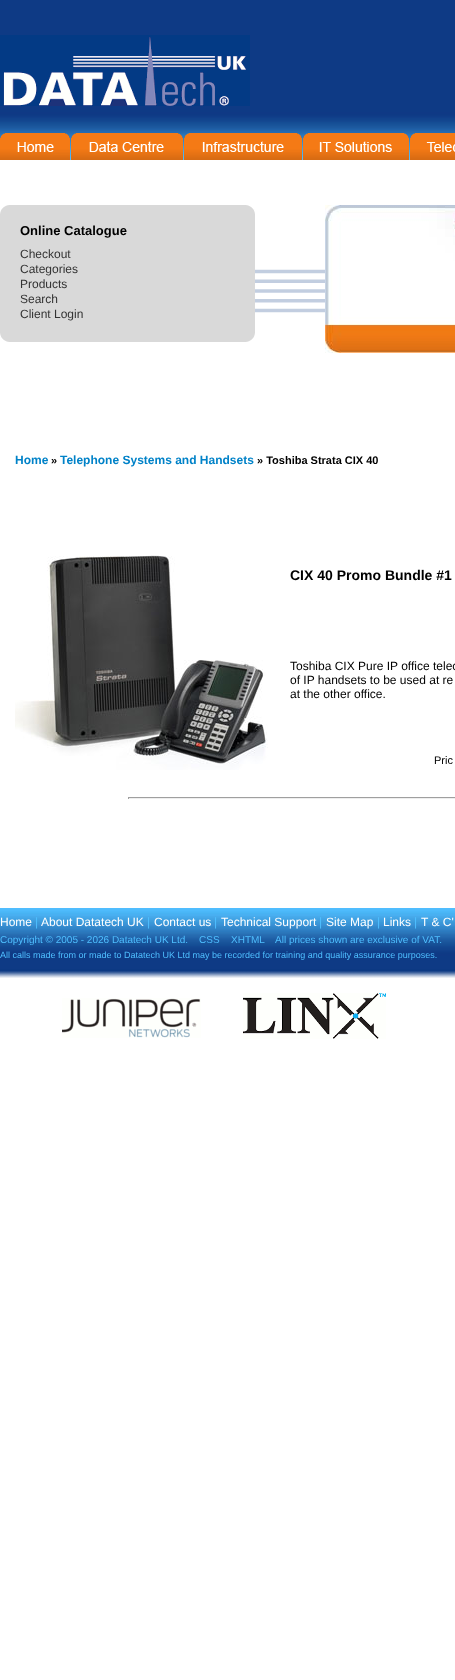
<svg xmlns="http://www.w3.org/2000/svg" xmlns:xlink="http://www.w3.org/1999/xlink" width="455" height="1680" viewBox="0 0 455 1680">
<style>
.cls-1{font:bold 13px Liberation Sans;fill:#000000}
.cls-2{font:12px Liberation Sans;fill:#333333}
.cls-3{font:bold 12px Liberation Sans;fill:#0082c8}
.cls-4{font:bold 11px Liberation Sans;fill:#000000}
.cls-5{font:bold 14px Liberation Sans;fill:#000000}
.cls-6{font:12px Liberation Sans;fill:#000000}
.cls-7{font:11px Liberation Sans;fill:#000000}
.cls-8{font:12px Liberation Sans;fill:#ffffff}
.cls-9{font:12px Liberation Sans;fill:#4fbfff}
.cls-10{font:10px Liberation Sans;fill:#4fbfff}
.cls-11{font:9px Liberation Sans;fill:#4fbfff}
</style>
<rect width="100%" height="100%" fill="#ffffff"/>
<image xlink:href="image0.png" x="0" y="0" width="455" height="313"/>
<image xlink:href="image1.png" x="0" y="35" width="250" height="71"/>
<image xlink:href="image2.png" x="0" y="133" width="70" height="27"/>
<image xlink:href="image3.png" x="71" y="133" width="112" height="27"/>
<image xlink:href="image4.png" x="184" y="133" width="118" height="27"/>
<image xlink:href="image5.png" x="303" y="133" width="106" height="27"/>
<image xlink:href="image6.png" x="410" y="133" width="45" height="27"/>
<rect fill="#d9d9d9" x="0" y="205" width="255" height="137"/>
<image xlink:href="image7.png" x="0" y="205" width="255" height="9"/>
<image xlink:href="image8.png" x="0" y="333" width="255" height="9"/>
<image xlink:href="image9.png" x="325" y="205" width="130" height="148"/>
<image xlink:href="image10.png" x="15" y="555" width="253" height="215"/>
<rect fill="#9f9f9f" x="128" y="797" width="327" height="1"/>
<rect fill="#eeeeee" x="128" y="798" width="327" height="1"/>
<rect fill="#9f9f9f" x="128" y="797" width="1" height="2"/>
<image xlink:href="image11.png" x="0" y="908" width="455" height="70"/>
<image xlink:href="image12.png" x="62" y="998" width="139" height="40"/>
<image xlink:href="image13.png" x="243" y="993" width="143" height="46"/>
<text class="cls-1" x="20" y="235">Online Catalogue</text>
<text class="cls-2"><tspan x="20" y="258">Checkout</tspan><tspan x="20" y="273">Categories</tspan><tspan x="20" y="288">Products</tspan><tspan x="20" y="303">Search</tspan><tspan x="20" y="318">Client Login</tspan></text>
<text class="cls-3" x="15" y="464">Home</text>
<text class="cls-4" x="51" y="464">»</text>
<text class="cls-3" x="60" y="464">Telephone Systems and Handsets</text>
<text class="cls-4" x="257" y="464">» Toshiba Strata CIX 40</text>
<text class="cls-5" x="290" y="580">CIX 40 Promo Bundle #1</text>
<text class="cls-6"><tspan x="290" y="670">Toshiba CIX Pure IP office telec</tspan><tspan x="290" y="684">of IP handsets to be used at re</tspan><tspan x="290" y="698">at the other office.</tspan></text>
<text class="cls-7" x="434" y="764">Pric</text>
<text class="cls-8" x="0" y="926">Home</text>
<text class="cls-9" x="35" y="926">|</text>
<text class="cls-8" x="41" y="926">About Datatech UK</text>
<text class="cls-9" x="147" y="926">|</text>
<text class="cls-8" x="154" y="926">Contact us</text>
<text class="cls-9" x="214" y="926">|</text>
<text class="cls-8" x="221" y="926">Technical Support</text>
<text class="cls-9" x="319" y="926">|</text>
<text class="cls-8" x="326" y="926">Site Map</text>
<text class="cls-9" x="377" y="926">|</text>
<text class="cls-8" x="383" y="926">Links</text>
<text class="cls-9" x="414" y="926">|</text>
<text class="cls-8" x="421" y="926">T &amp; C'</text>
<text class="cls-10" x="0" y="943">Copyright © 2005 - 2026 Datatech UK Ltd.</text>
<text class="cls-10" x="199" y="943">CSS</text>
<text class="cls-10" x="231" y="943">XHTML</text>
<text class="cls-10" x="275" y="943">All prices shown are exclusive of VAT.</text>
<text class="cls-11" x="0" y="958">All calls made from or made to Datatech UK Ltd may be recorded for training and quality assurance purposes.</text>
</svg>
